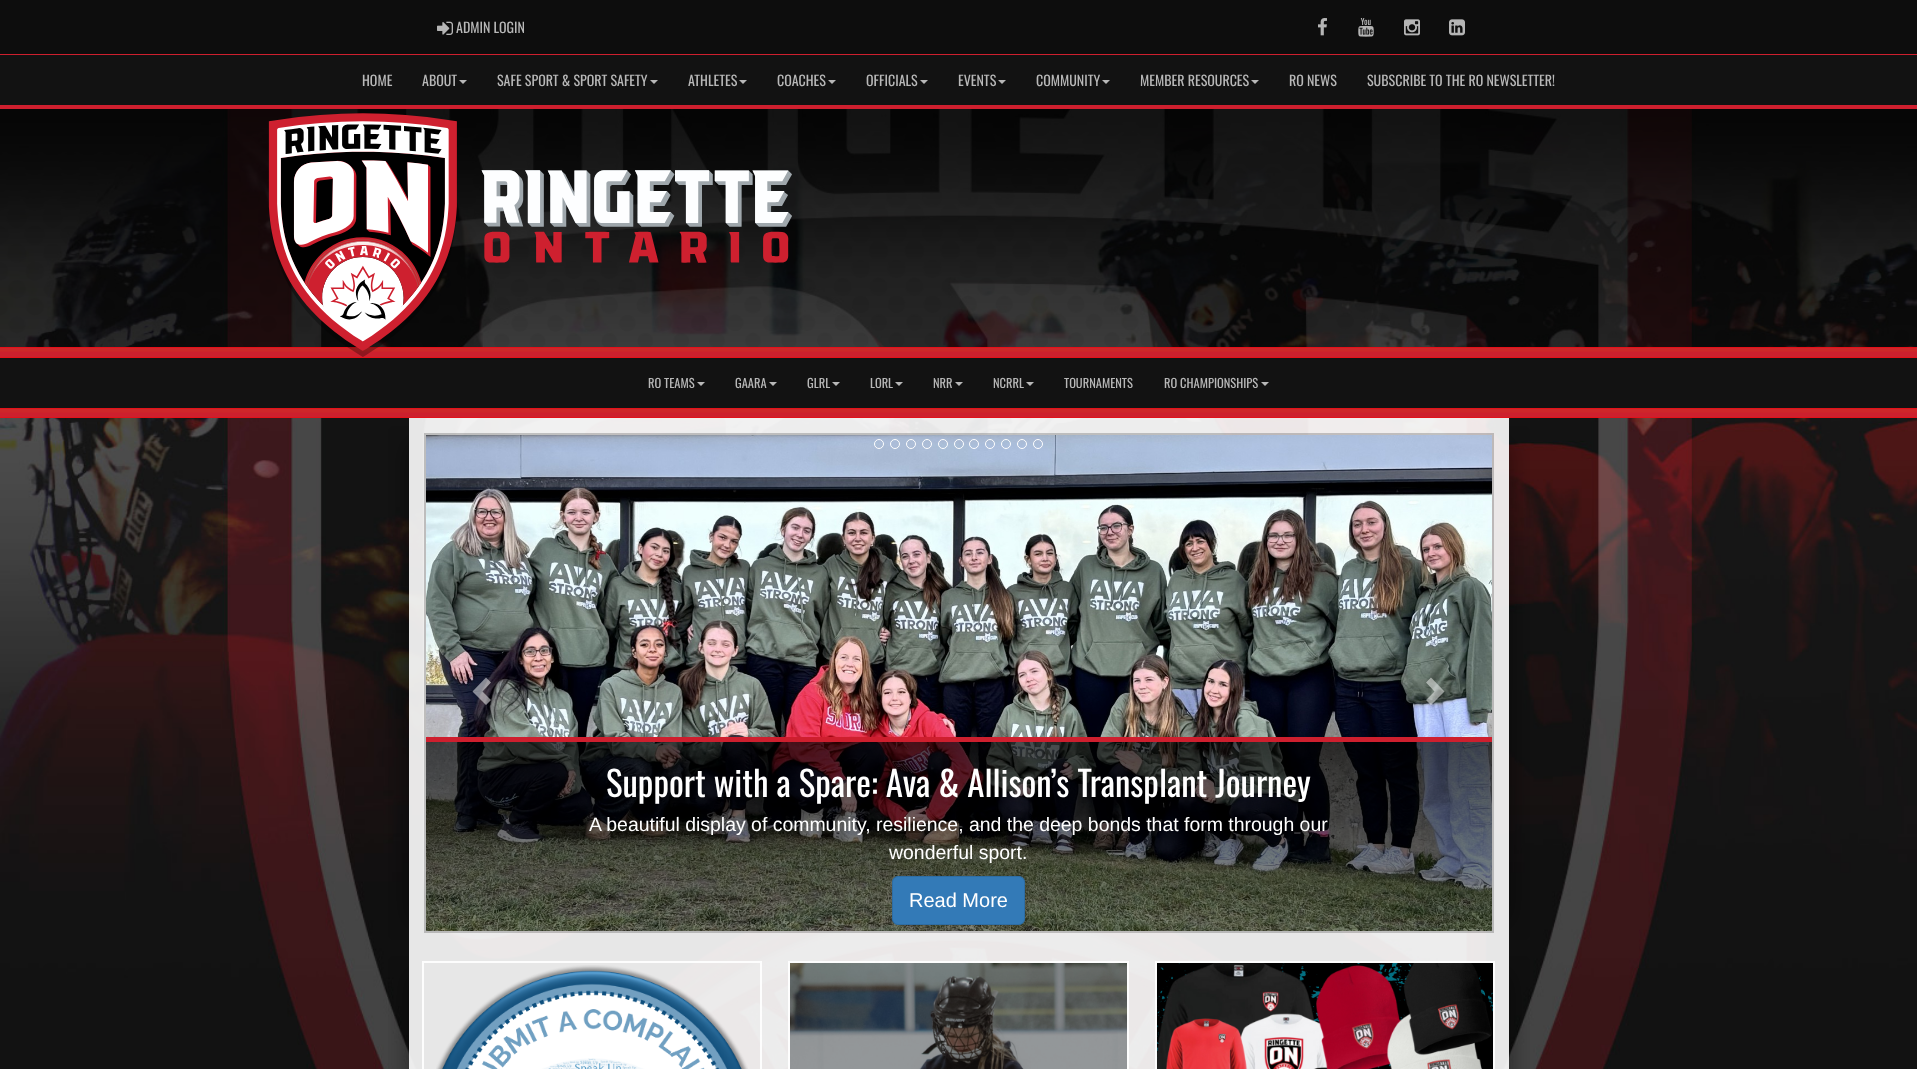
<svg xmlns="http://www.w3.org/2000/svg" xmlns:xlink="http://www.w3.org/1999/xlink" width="1917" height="1069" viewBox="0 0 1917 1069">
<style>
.cls-1{font:14px Oswald;fill:#b8b8b8}
.cls-2{font:12.5px Oswald;fill:#b8b8b8}
.cls-3{font:34.9px Oswald;fill:#ffffff}
.cls-4{font:19.45px Liberation Sans;fill:#ffffff}
.cls-5{font:20px Liberation Sans;fill:#ffffff}
</style>
<defs>
<clipPath id="clip1"><rect x="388" y="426" width="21" height="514"/></clipPath>
<clipPath id="clip2"><rect x="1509" y="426" width="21" height="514"/></clipPath>
<clipPath id="clip3"><rect x="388" y="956" width="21" height="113"/></clipPath>
<clipPath id="clip4"><rect x="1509" y="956" width="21" height="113"/></clipPath>
</defs>
<rect width="100%" height="100%" fill="#ffffff"/>
<rect fill="#ce1f2e" x="0" y="54" width="1917" height="1"/>
<rect fill="#0d0d0d" x="0" y="0" width="1917" height="54"/>
<image xlink:href="image0.png" x="437" y="21" width="16" height="14"/>
<image xlink:href="image1.png" x="1318" y="18" width="9" height="18"/>
<image xlink:href="image2.png" x="1358" y="18" width="16" height="19"/>
<image xlink:href="image3.png" x="1404" y="19" width="16" height="17"/>
<image xlink:href="image4.png" x="1449" y="19" width="16" height="17"/>
<rect fill="#121212" x="0" y="55" width="1917" height="50"/>
<rect fill="#ce1f2e" x="0" y="105" width="1917" height="4"/>
<path fill="#b8b8b8" d="M459 80H467L463 84Z"/>
<path fill="#b8b8b8" d="M650 80H658L654 84Z"/>
<path fill="#b8b8b8" d="M739 80H747L743 84Z"/>
<path fill="#b8b8b8" d="M828 80H836L832 84Z"/>
<path fill="#b8b8b8" d="M920 80H928L924 84Z"/>
<path fill="#b8b8b8" d="M998 80H1006L1002 84Z"/>
<path fill="#b8b8b8" d="M1102 80H1110L1106 84Z"/>
<path fill="#b8b8b8" d="M1251 80H1259L1255 84Z"/>
<image xlink:href="image5.png" x="0" y="109" width="1917" height="960"/>
<image xlink:href="image6.png" x="0" y="109" width="1917" height="238"/>
<rect fill="#ce1f2e" x="0" y="347" width="1917" height="11"/>
<image xlink:href="image8.png" x="0" y="347" width="1917" height="11"/>
<image xlink:href="image7.png" x="268" y="113" width="524" height="244"/>
<g clip-path="url(#clip1)">
<rect fill="#000000" fill-opacity="0.45" filter="blur(12.5px)" x="409" y="443" width="1050" height="480"/>
</g>
<g clip-path="url(#clip2)">
<rect fill="#000000" fill-opacity="0.45" filter="blur(12.5px)" x="459" y="443" width="1050" height="480"/>
</g>
<rect fill="#121212" x="0" y="358" width="1917" height="50"/>
<path fill="#b8b8b8" d="M697 382H705L701 386Z"/>
<path fill="#b8b8b8" d="M769 382H777L773 386Z"/>
<path fill="#b8b8b8" d="M832 382H840L836 386Z"/>
<path fill="#b8b8b8" d="M895 382H903L899 386Z"/>
<path fill="#b8b8b8" d="M955 382H963L959 386Z"/>
<path fill="#b8b8b8" d="M1026 382H1034L1030 386Z"/>
<path fill="#b8b8b8" d="M1261 382H1269L1265 386Z"/>
<rect fill="#ce1f2e" x="0" y="408" width="1917" height="10"/>
<image xlink:href="image9.png" x="0" y="408" width="1917" height="10"/>
<rect fill="#ffffff" fill-opacity="0.9" x="409" y="418" width="1100" height="530"/>
<rect fill="none" stroke="#000000" stroke-opacity="0.2" stroke-width="2" x="425" y="434" width="1068" height="498"/>
<image xlink:href="image10.png" x="426" y="435" width="1066" height="496"/>
<circle fill="none" stroke="#ffffff" cx="879" cy="444" r="4.5"/>
<circle fill="none" stroke="#ffffff" cx="895" cy="444" r="4.5"/>
<circle fill="none" stroke="#ffffff" cx="911" cy="444" r="4.5"/>
<circle fill="none" stroke="#ffffff" cx="927" cy="444" r="4.5"/>
<circle fill="none" stroke="#ffffff" cx="943" cy="444" r="4.5"/>
<circle fill="none" stroke="#ffffff" cx="959" cy="444" r="4.5"/>
<circle fill="none" stroke="#ffffff" cx="974" cy="444" r="4.5"/>
<circle fill="none" stroke="#ffffff" cx="990" cy="444" r="4.5"/>
<circle fill="none" stroke="#ffffff" cx="1006" cy="444" r="4.5"/>
<circle fill="none" stroke="#ffffff" cx="1022" cy="444" r="4.5"/>
<circle fill="none" stroke="#ffffff" cx="1038" cy="444" r="4.5"/>
<path fill="#ffffff" fill-opacity="0.5" d="M491 682.5L482.5 691.5L491 700L486 705L472.5 691.5L486 677.5Z"/>
<path fill="#ffffff" fill-opacity="0.5" d="M1444.5 691.5L1431 705L1426 700L1434.5 691.5L1426 682.5L1431 677.5Z"/>
<rect fill="#ce1f2e" x="426" y="737" width="1066" height="5"/>
<rect fill="#337ab7" stroke="#2e6da4" x="892.5" y="876.5" width="132" height="48" rx="5.5"/>
<g clip-path="url(#clip3)">
<rect fill="#000000" fill-opacity="0.45" filter="blur(12.5px)" x="409" y="973" width="1050" height="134"/>
</g>
<g clip-path="url(#clip4)">
<rect fill="#000000" fill-opacity="0.45" filter="blur(12.5px)" x="459" y="973" width="1050" height="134"/>
</g>
<rect fill="#ffffff" fill-opacity="0.9" x="409" y="948" width="1100" height="121"/>
<rect fill="none" stroke="#ffffff" stroke-opacity="0.9" stroke-width="2" x="423" y="962" width="338" height="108"/>
<image xlink:href="image11.png" x="436" y="965" width="312" height="104"/>
<rect fill="none" stroke="#ffffff" stroke-opacity="0.9" stroke-width="2" x="789" y="962" width="339" height="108"/>
<image xlink:href="image12.png" x="790" y="963" width="337" height="106"/>
<rect fill="none" stroke="#ffffff" stroke-opacity="0.9" stroke-width="2" x="1156" y="962" width="338" height="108"/>
<image xlink:href="image13.png" x="1157" y="963" width="336" height="106"/>
<text class="cls-1" x="456" y="33">ADMIN LOGIN</text>
<text class="cls-1" x="362" y="86">HOME</text>
<text class="cls-1" x="422" y="86">ABOUT</text>
<text class="cls-1" x="497" y="86">SAFE SPORT &amp; SPORT SAFETY</text>
<text class="cls-1" x="688" y="86">ATHLETES</text>
<text class="cls-1" x="777" y="86">COACHES</text>
<text class="cls-1" x="866" y="86">OFFICIALS</text>
<text class="cls-1" x="958" y="86">EVENTS</text>
<text class="cls-1" x="1036" y="86">COMMUNITY</text>
<text class="cls-1" x="1140" y="86">MEMBER RESOURCES</text>
<text class="cls-1" x="1289" y="86">RO NEWS</text>
<text class="cls-1" x="1367" y="86">SUBSCRIBE TO THE RO NEWSLETTER!</text>
<text class="cls-2" x="648" y="388">RO TEAMS</text>
<text class="cls-2" x="735" y="388">GAARA</text>
<text class="cls-2" x="807" y="388">GLRL</text>
<text class="cls-2" x="870" y="388">LORL</text>
<text class="cls-2" x="933" y="388">NRR</text>
<text class="cls-2" x="993" y="388">NCRRL</text>
<text class="cls-2" x="1064" y="388">TOURNAMENTS</text>
<text class="cls-2" x="1164" y="388">RO CHAMPIONSHIPS</text>
<text class="cls-3" x="606" y="797">Support with a Spare: Ava &amp; Allison’s Transplant Journey</text>
<text class="cls-4" x="589" y="831">A beautiful display of community, resilience, and the deep bonds that form through our</text>
<text class="cls-4" x="889" y="859">wonderful sport.</text>
<text class="cls-5" x="909" y="907">Read More</text>
</svg>
